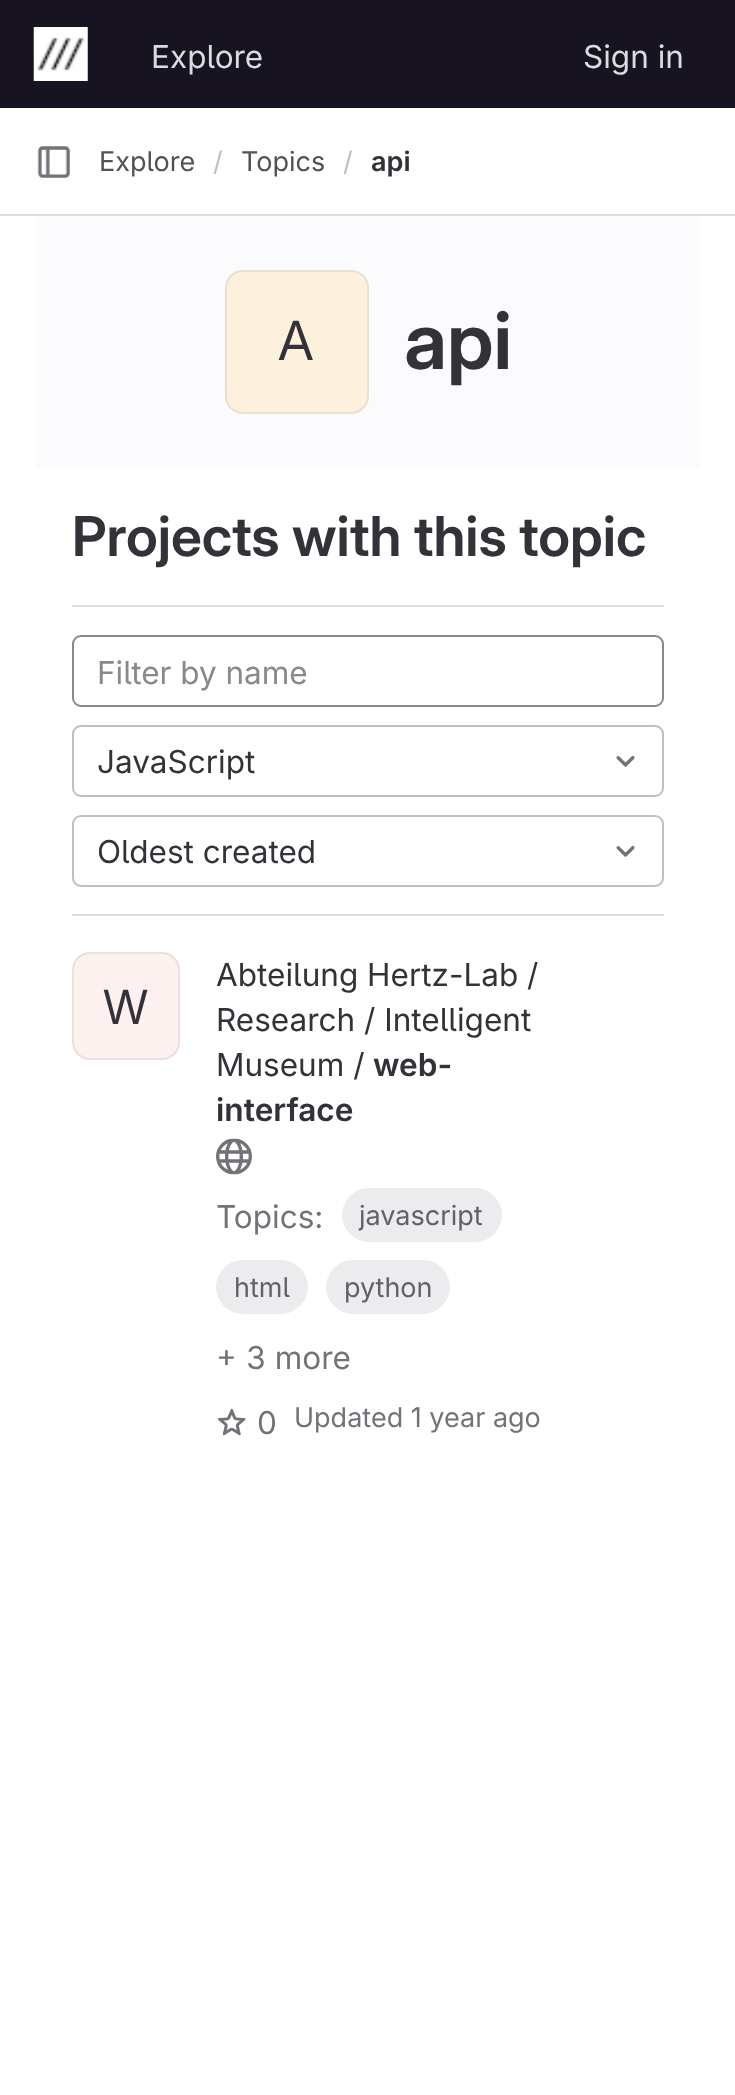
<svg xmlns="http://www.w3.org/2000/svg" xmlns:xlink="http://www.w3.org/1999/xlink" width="735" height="2095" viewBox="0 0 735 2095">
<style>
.cls-1{font:31.5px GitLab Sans;fill:#dcdcde}
.cls-2{font:27px GitLab Sans;fill:#535158}
.cls-3{font:27px GitLab Sans;fill:#bfbfc3}
.cls-4{font:600 27px 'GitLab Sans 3';fill:#333238}
.cls-5{font:54px 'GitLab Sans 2';fill:#333238}
.cls-6{font:600 79px GitLab Sans;fill:#333238}
.cls-7{font:600 55.1px 'GitLab Sans 2';fill:#333238}
.cls-8{font:31.5px GitLab Sans;fill:#89888d}
.cls-9{font:31.5px GitLab Sans;fill:#333238}
.cls-10{font:47px 'GitLab Sans 3';fill:#333238}
.cls-11{font:600 31.5px 'GitLab Sans 3';fill:#333238}
.cls-12{font:31.5px GitLab Sans;fill:#737278}
.cls-13{font:27px GitLab Sans;fill:#626168}
.cls-14{font:27px GitLab Sans;fill:#737278}
</style>
<rect width="100%" height="100%" fill="#ffffff"/>
<rect fill="#171321" x="0" y="0" width="735" height="108"/>
<image xlink:href="image0.png" x="33" y="27" width="55" height="54"/>
<rect fill="#dcdcde" x="0" y="214" width="735" height="2"/>
<image xlink:href="image1.png" x="37" y="146" width="33" height="32"/>
<rect fill="#fbfafd" x="36" y="216" width="664" height="252"/>
<rect fill="#fdf1dd" x="225" y="270" width="144" height="144" rx="18"/>
<rect fill="none" stroke="#1f1e24" stroke-opacity="0.08" stroke-width="2" x="226" y="271" width="142" height="142" rx="17"/>
<rect fill="#dcdcde" x="72" y="605" width="592" height="2"/>
<rect fill="#dcdcde" x="72" y="914" width="592" height="2"/>
<rect fill="none" stroke="#89888d" stroke-width="2" x="73" y="636" width="590" height="70" rx="8"/>
<rect fill="none" stroke="#bfbfc3" stroke-width="2" x="73" y="726" width="590" height="70" rx="8"/>
<image xlink:href="image2.png" x="616" y="755" width="19" height="12"/>
<rect fill="none" stroke="#bfbfc3" stroke-width="2" x="73" y="816" width="590" height="70" rx="8"/>
<image xlink:href="image3.png" x="616" y="845" width="19" height="12"/>
<rect fill="#fcf1ef" x="72" y="952" width="108" height="108" rx="18"/>
<rect fill="none" stroke="#1f1e24" stroke-opacity="0.08" stroke-width="2" x="73" y="953" width="106" height="106" rx="17"/>
<image xlink:href="image4.png" x="216" y="1138" width="36" height="37"/>
<rect fill="#ececef" x="342" y="1188" width="160" height="54" rx="27"/>
<rect fill="#ececef" x="216" y="1260" width="92" height="54" rx="27"/>
<rect fill="#ececef" x="326" y="1260" width="124" height="54" rx="27"/>
<image xlink:href="image5.png" x="218" y="1408" width="28" height="28"/>
<text class="cls-1" x="151" y="68">Explore</text>
<text class="cls-1" x="583" y="68">Sign in</text>
<text class="cls-2" x="99" y="171">Explore</text>
<text class="cls-3" x="213" y="171">/</text>
<text class="cls-2" x="241" y="171">Topics</text>
<text class="cls-3" x="343" y="171">/</text>
<text class="cls-4" x="371" y="171">api</text>
<text class="cls-5" x="278" y="360">A</text>
<text class="cls-6" x="404" y="369">api</text>
<text class="cls-7" x="72" y="556">Projects with this topic</text>
<text class="cls-8" x="97" y="684">Filter by name</text>
<text class="cls-9" x="97" y="773">JavaScript</text>
<text class="cls-9" x="97" y="863">Oldest created</text>
<text class="cls-10" x="103" y="1024">W</text>
<text class="cls-9"><tspan x="216" y="986">Abteilung Hertz-Lab /</tspan><tspan x="216" y="1031">Research / Intelligent</tspan><tspan x="216" y="1076">Museum /</tspan></text>
<text class="cls-11" x="373" y="1076">web-</text>
<text class="cls-11" x="216" y="1121">interface</text>
<text class="cls-12" x="216" y="1228">Topics:</text>
<text class="cls-13" x="359" y="1225">javascript</text>
<text class="cls-13" x="234" y="1297">html</text>
<text class="cls-13" x="344" y="1297">python</text>
<text class="cls-12" x="216" y="1369">+ 3 more</text>
<text class="cls-12" x="257" y="1434">0</text>
<text class="cls-14" x="294" y="1427">Updated 1 year ago</text>
</svg>
